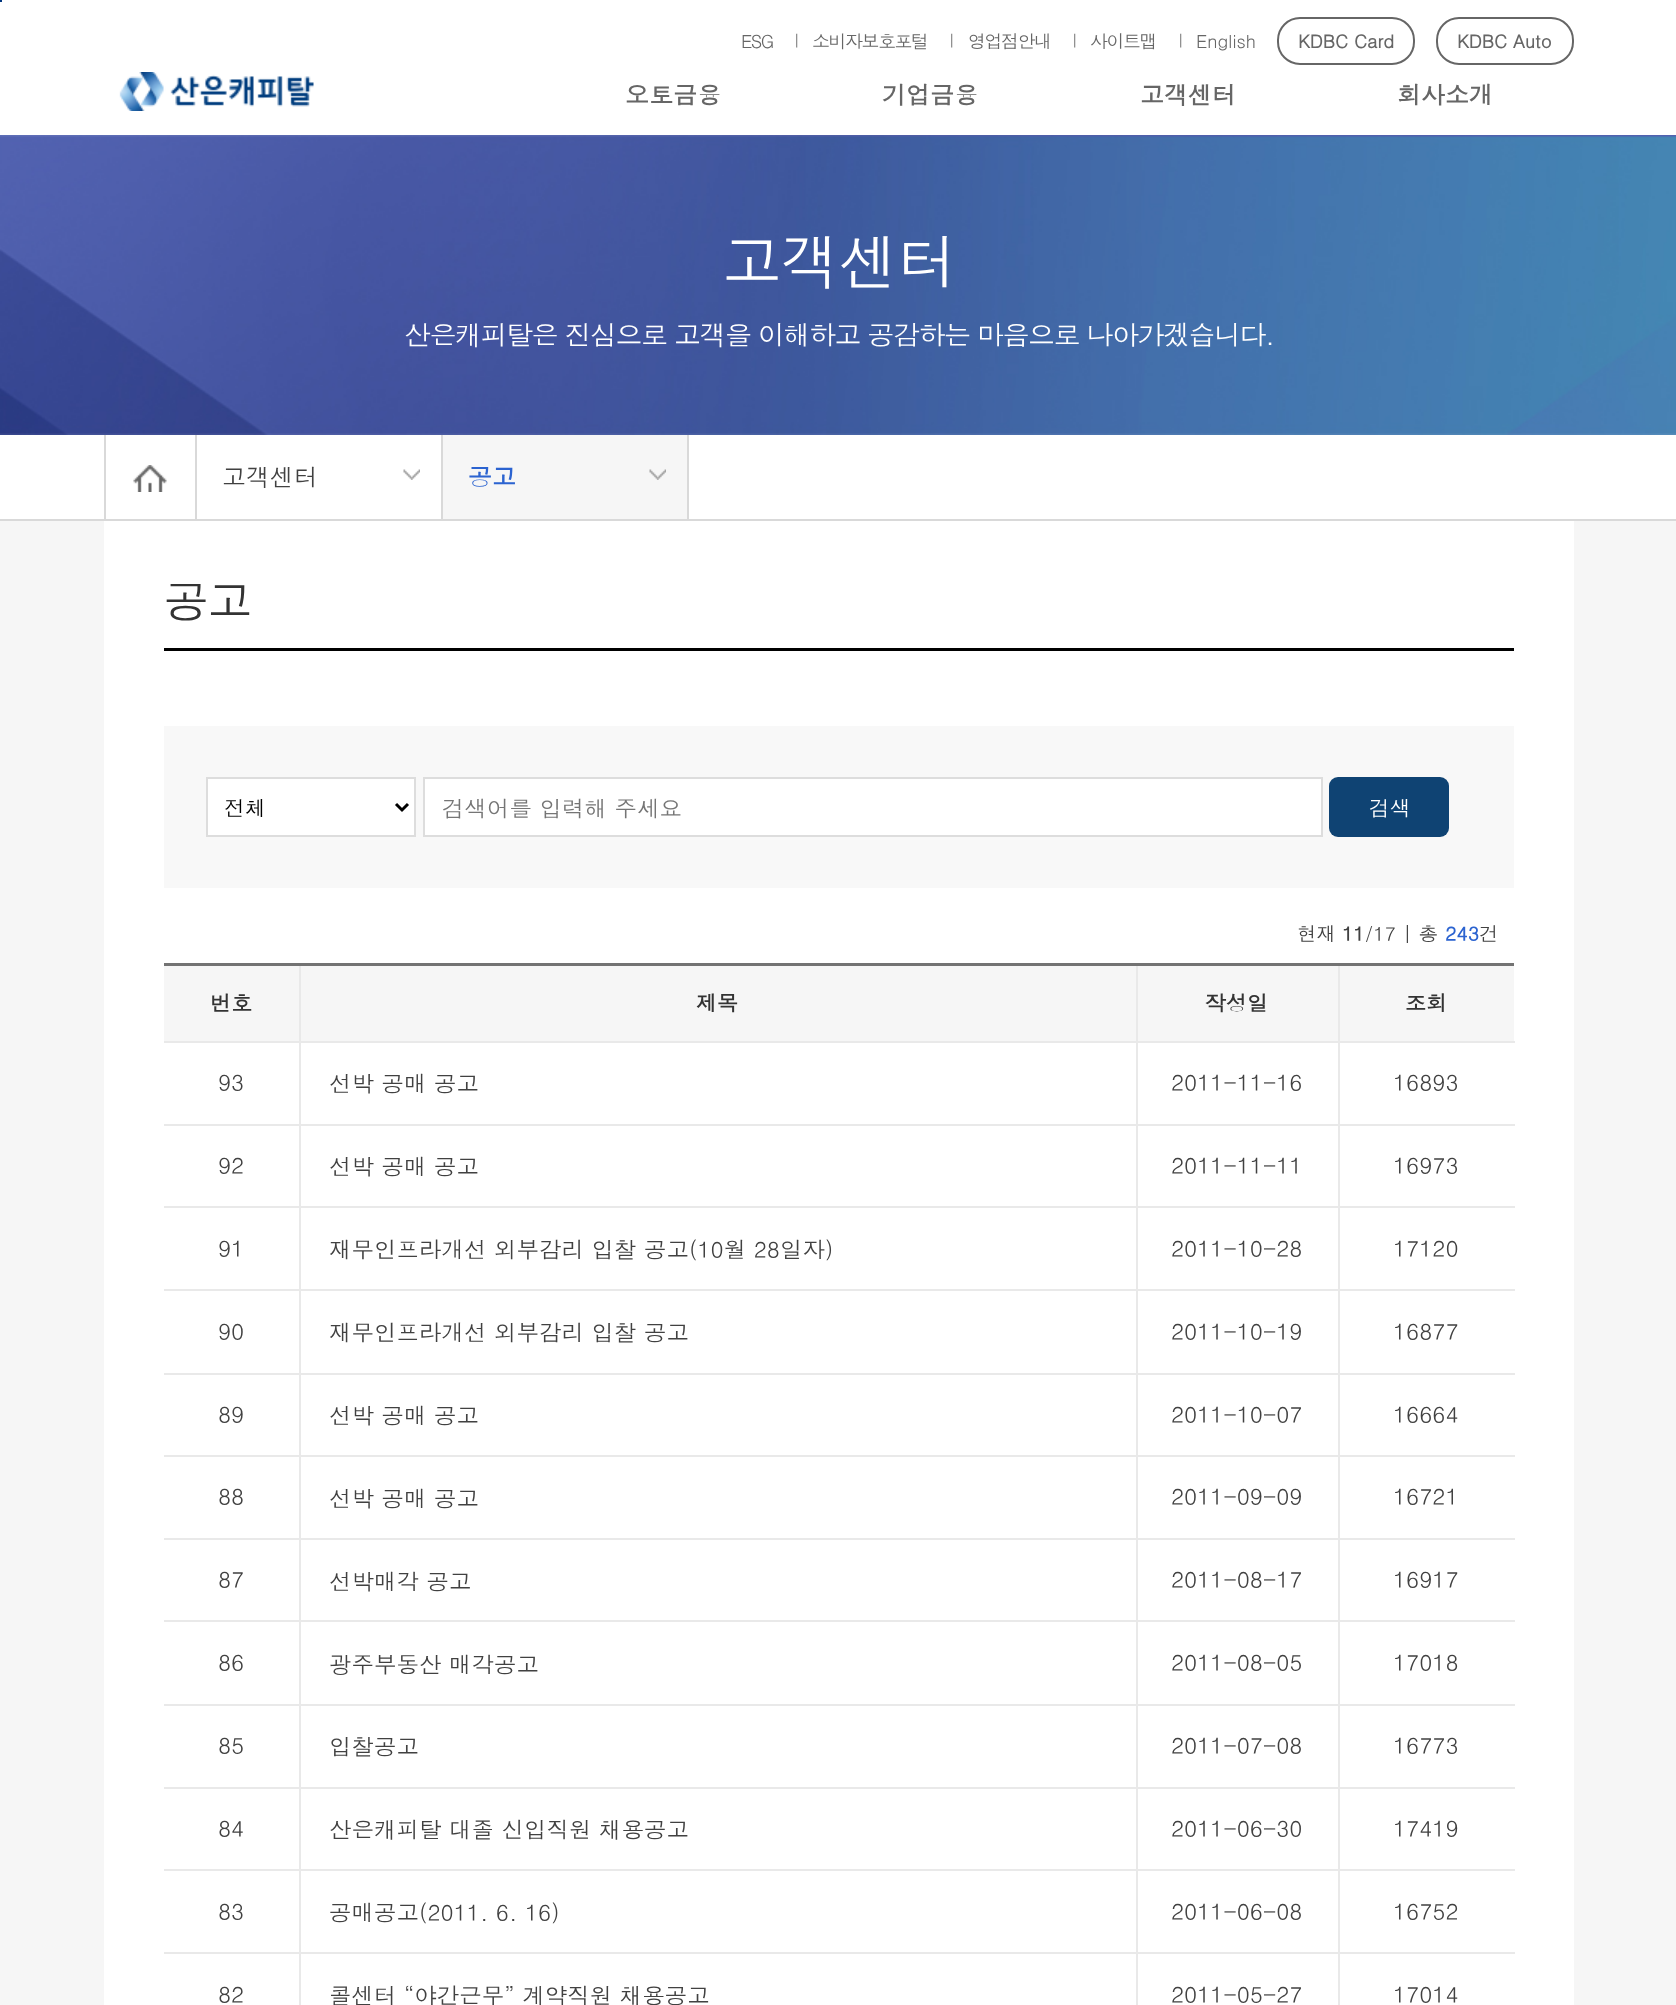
<svg xmlns="http://www.w3.org/2000/svg" xmlns:xlink="http://www.w3.org/1999/xlink" width="1676" height="2005" viewBox="0 0 1676 2005">
<style>
.cls-1{font:18px Dotum;letter-spacing:-1.5px;fill:#666666}
.cls-2{font:15px Dotum;letter-spacing:-1.5px;fill:#666666}
.cls-3{font:18px Dotum;fill:#666666}
.cls-4{font:bold 18px Dotum;fill:#666666}
.cls-5{font:bold 24px Dotum;fill:#666666}
.cls-6{font:60px Dotum;letter-spacing:-1.5px;fill:#ffffff}
.cls-7{font:27px Dotum;letter-spacing:-1.5px;fill:#ffffff}
.cls-8{font:24px Dotum;fill:#414141}
.cls-9{font:bold 24px Dotum;fill:#2b63d0}
.cls-10{font:45px Dotum;letter-spacing:-1.5px;fill:#333333}
.cls-11{font:21px Dotum;fill:#000000}
.cls-12{font:22.5px Dotum;fill:#757575}
.cls-13{font:21px Dotum;fill:#ffffff}
.cls-14{font:19.5px Dotum;fill:#414141}
.cls-15{font:bold 19.5px Dotum;fill:#414141}
.cls-16{font:bold 19.5px Dotum;fill:#2b63d0}
.cls-17{font:bold 21px Dotum;fill:#333333}
.cls-18{font:22.5px Dotum;fill:#414141}
</style>
<rect width="100%" height="100%" fill="#ffffff"/>
<rect fill="#00357e" x="0" y="0" width="2" height="2"/>
<rect fill="none" stroke="#666666" stroke-width="2" x="1278" y="18" width="136" height="46" rx="22"/>
<rect fill="none" stroke="#666666" stroke-width="2" x="1437" y="18" width="136" height="46" rx="22"/>
<image xlink:href="image0.png" x="119" y="72" width="195" height="39"/>
<image xlink:href="image1.png" x="0" y="135" width="1676" height="300"/>
<rect fill="#d9d9d9" x="0" y="519" width="1676" height="2"/>
<image xlink:href="image2.png" x="133" y="465" width="34" height="27"/>
<rect fill="#d9d9d9" x="195" y="435" width="2" height="84"/>
<rect fill="#d9d9d9" x="104" y="435" width="2" height="84"/>
<image xlink:href="image3.png" x="403" y="469" width="17" height="11"/>
<rect fill="#d9d9d9" x="441" y="435" width="2" height="86"/>
<rect fill="#f6f6f6" x="443" y="435" width="244" height="84"/>
<image xlink:href="image4.png" x="649" y="469" width="17" height="11"/>
<rect fill="#d9d9d9" x="687" y="435" width="2" height="86"/>
<rect fill="#f6f6f6" x="0" y="521" width="1676" height="1484"/>
<rect fill="#ffffff" x="104" y="521" width="1470" height="1484"/>
<rect fill="#000000" x="164" y="648" width="1350" height="3"/>
<rect fill="#f8f8f8" x="164" y="726" width="1350" height="162"/>
<rect fill="#ffffff" stroke="#dddddd" stroke-width="2" x="207" y="778" width="208" height="58"/>
<path fill="none" stroke="#000000" stroke-width="3" d="M396 804L402 810L408 804"/>
<rect fill="#ffffff" stroke="#dddddd" stroke-width="2" x="424" y="778" width="898" height="58"/>
<rect fill="#0f4373" x="1329" y="777" width="120" height="60" rx="9"/>
<rect fill="#e9e9e9" x="1338" y="1952" width="2" height="53"/>
<rect fill="#e9e9e9" x="1338" y="1952" width="177" height="2"/>
<rect fill="#e9e9e9" x="1338" y="1869" width="2" height="84"/>
<rect fill="#e9e9e9" x="1338" y="1869" width="177" height="2"/>
<rect fill="#e9e9e9" x="1338" y="1787" width="2" height="84"/>
<rect fill="#e9e9e9" x="1338" y="1787" width="177" height="2"/>
<rect fill="#e9e9e9" x="1338" y="1704" width="2" height="84"/>
<rect fill="#e9e9e9" x="1338" y="1704" width="177" height="2"/>
<rect fill="#e9e9e9" x="1338" y="1620" width="2" height="86"/>
<rect fill="#e9e9e9" x="1338" y="1620" width="177" height="2"/>
<rect fill="#e9e9e9" x="1338" y="1538" width="2" height="84"/>
<rect fill="#e9e9e9" x="1338" y="1538" width="177" height="2"/>
<rect fill="#e9e9e9" x="1338" y="1455" width="2" height="84"/>
<rect fill="#e9e9e9" x="1338" y="1455" width="177" height="2"/>
<rect fill="#e9e9e9" x="1338" y="1373" width="2" height="84"/>
<rect fill="#e9e9e9" x="1338" y="1373" width="177" height="2"/>
<rect fill="#e9e9e9" x="1338" y="1289" width="2" height="85"/>
<rect fill="#e9e9e9" x="1338" y="1289" width="177" height="2"/>
<rect fill="#e9e9e9" x="1338" y="1206" width="2" height="84"/>
<rect fill="#e9e9e9" x="1338" y="1206" width="177" height="2"/>
<rect fill="#e9e9e9" x="1338" y="1124" width="2" height="84"/>
<rect fill="#e9e9e9" x="1338" y="1124" width="177" height="2"/>
<rect fill="#e9e9e9" x="1338" y="1041" width="2" height="84"/>
<rect fill="#e9e9e9" x="1338" y="1041" width="177" height="2"/>
<rect fill="#e9e9e9" x="1338" y="963" width="2" height="80"/>
<rect fill="#e9e9e9" x="1136" y="1952" width="2" height="53"/>
<rect fill="#e9e9e9" x="1136" y="1952" width="204" height="2"/>
<rect fill="#e9e9e9" x="1136" y="1869" width="2" height="84"/>
<rect fill="#e9e9e9" x="1136" y="1869" width="204" height="2"/>
<rect fill="#e9e9e9" x="1136" y="1787" width="2" height="84"/>
<rect fill="#e9e9e9" x="1136" y="1787" width="204" height="2"/>
<rect fill="#e9e9e9" x="1136" y="1704" width="2" height="84"/>
<rect fill="#e9e9e9" x="1136" y="1704" width="204" height="2"/>
<rect fill="#e9e9e9" x="1136" y="1620" width="2" height="86"/>
<rect fill="#e9e9e9" x="1136" y="1620" width="204" height="2"/>
<rect fill="#e9e9e9" x="1136" y="1538" width="2" height="84"/>
<rect fill="#e9e9e9" x="1136" y="1538" width="204" height="2"/>
<rect fill="#e9e9e9" x="1136" y="1455" width="2" height="84"/>
<rect fill="#e9e9e9" x="1136" y="1455" width="204" height="2"/>
<rect fill="#e9e9e9" x="1136" y="1373" width="2" height="84"/>
<rect fill="#e9e9e9" x="1136" y="1373" width="204" height="2"/>
<rect fill="#e9e9e9" x="1136" y="1289" width="2" height="85"/>
<rect fill="#e9e9e9" x="1136" y="1289" width="204" height="2"/>
<rect fill="#e9e9e9" x="1136" y="1206" width="2" height="84"/>
<rect fill="#e9e9e9" x="1136" y="1206" width="204" height="2"/>
<rect fill="#e9e9e9" x="1136" y="1124" width="2" height="84"/>
<rect fill="#e9e9e9" x="1136" y="1124" width="204" height="2"/>
<rect fill="#e9e9e9" x="1136" y="1041" width="2" height="84"/>
<rect fill="#e9e9e9" x="1136" y="1041" width="204" height="2"/>
<rect fill="#e9e9e9" x="1136" y="963" width="2" height="80"/>
<rect fill="#e9e9e9" x="299" y="1952" width="2" height="53"/>
<rect fill="#e9e9e9" x="299" y="1952" width="838" height="2"/>
<rect fill="#e9e9e9" x="299" y="1869" width="2" height="84"/>
<rect fill="#e9e9e9" x="299" y="1869" width="838" height="2"/>
<rect fill="#e9e9e9" x="299" y="1787" width="2" height="84"/>
<rect fill="#e9e9e9" x="299" y="1787" width="838" height="2"/>
<rect fill="#e9e9e9" x="299" y="1704" width="2" height="84"/>
<rect fill="#e9e9e9" x="299" y="1704" width="838" height="2"/>
<rect fill="#e9e9e9" x="299" y="1620" width="2" height="86"/>
<rect fill="#e9e9e9" x="299" y="1620" width="838" height="2"/>
<rect fill="#e9e9e9" x="299" y="1538" width="2" height="84"/>
<rect fill="#e9e9e9" x="299" y="1538" width="838" height="2"/>
<rect fill="#e9e9e9" x="299" y="1455" width="2" height="84"/>
<rect fill="#e9e9e9" x="299" y="1455" width="838" height="2"/>
<rect fill="#e9e9e9" x="299" y="1373" width="2" height="84"/>
<rect fill="#e9e9e9" x="299" y="1373" width="838" height="2"/>
<rect fill="#e9e9e9" x="299" y="1289" width="2" height="85"/>
<rect fill="#e9e9e9" x="299" y="1289" width="838" height="2"/>
<rect fill="#e9e9e9" x="299" y="1206" width="2" height="84"/>
<rect fill="#e9e9e9" x="299" y="1206" width="838" height="2"/>
<rect fill="#e9e9e9" x="299" y="1124" width="2" height="84"/>
<rect fill="#e9e9e9" x="299" y="1124" width="838" height="2"/>
<rect fill="#e9e9e9" x="299" y="1041" width="2" height="84"/>
<rect fill="#e9e9e9" x="299" y="1041" width="838" height="2"/>
<rect fill="#e9e9e9" x="299" y="963" width="2" height="80"/>
<rect fill="#737373" x="164" y="963" width="1350" height="3"/>
<rect fill="#f6f6f6" x="164" y="966" width="135" height="75"/>
<rect fill="#e9e9e9" x="164" y="1041" width="136" height="2"/>
<rect fill="#f6f6f6" x="301" y="966" width="835" height="75"/>
<rect fill="#f6f6f6" x="1138" y="966" width="200" height="75"/>
<rect fill="#f6f6f6" x="1340" y="966" width="174" height="75"/>
<rect fill="#e9e9e9" x="164" y="1124" width="136" height="2"/>
<rect fill="#e9e9e9" x="164" y="1206" width="136" height="2"/>
<rect fill="#e9e9e9" x="164" y="1289" width="136" height="2"/>
<rect fill="#e9e9e9" x="164" y="1373" width="136" height="2"/>
<rect fill="#e9e9e9" x="164" y="1455" width="136" height="2"/>
<rect fill="#e9e9e9" x="164" y="1538" width="136" height="2"/>
<rect fill="#e9e9e9" x="164" y="1620" width="136" height="2"/>
<rect fill="#e9e9e9" x="164" y="1704" width="136" height="2"/>
<rect fill="#e9e9e9" x="164" y="1787" width="136" height="2"/>
<rect fill="#e9e9e9" x="164" y="1869" width="136" height="2"/>
<rect fill="#e9e9e9" x="164" y="1952" width="136" height="2"/>
<text class="cls-1" x="741" y="48">ESG</text>
<text class="cls-2" x="793" y="46">|</text>
<text class="cls-1" x="812" y="48">소비자보호포털</text>
<text class="cls-2" x="948" y="46">|</text>
<text class="cls-1" x="968" y="48">영업점안내</text>
<text class="cls-2" x="1071" y="46">|</text>
<text class="cls-1" x="1090" y="48">사이트맵</text>
<text class="cls-2" x="1177" y="46">|</text>
<text class="cls-3" x="1196" y="48">English</text>
<text class="cls-4" x="1298" y="48">KDBC Card</text>
<text class="cls-4" x="1457" y="48">KDBC Auto</text>
<text class="cls-5" x="625" y="104">오토금융</text>
<text class="cls-5" x="882" y="104">기업금융</text>
<text class="cls-5" x="1140" y="104">고객센터</text>
<text class="cls-5" x="1397" y="104">회사소개</text>
<text class="cls-6" x="722" y="284">고객센터</text>
<text class="cls-7" x="404" y="345">산은캐피탈은 진심으로 고객을 이해하고 공감하는 마음으로 나아가겠습니다.</text>
<text class="cls-8" x="222" y="486">고객센터</text>
<text class="cls-9" x="468" y="486">공고</text>
<text class="cls-10" x="164" y="618">공고</text>
<text class="cls-11" x="224" y="816">전체</text>
<text class="cls-12" x="442" y="817">검색어를 입력해 주세요</text>
<text class="cls-13" x="1369" y="816">검색</text>
<text class="cls-14" x="1297" y="941">현재</text>
<text class="cls-15" x="1342" y="941">11</text>
<text class="cls-14" x="1365" y="941">/17 | 총</text>
<text class="cls-16" x="1445" y="941">243</text>
<text class="cls-14" x="1479" y="941">건</text>
<text class="cls-17" x="210" y="1011">번호</text>
<text class="cls-17" x="696" y="1011">제목</text>
<text class="cls-17" x="1205" y="1011">작성일</text>
<text class="cls-17" x="1405" y="1011">조회</text>
<text class="cls-18" x="218" y="1091">93</text>
<text class="cls-18" x="329" y="1092">선박 공매 공고</text>
<text class="cls-18" x="1171" y="1091">2011-11-16</text>
<text class="cls-18" x="1393" y="1091">16893</text>
<text class="cls-18" x="218" y="1174">92</text>
<text class="cls-18" x="329" y="1175">선박 공매 공고</text>
<text class="cls-18" x="1171" y="1174">2011-11-11</text>
<text class="cls-18" x="1393" y="1174">16973</text>
<text class="cls-18" x="218" y="1257">91</text>
<text class="cls-18" x="329" y="1258">재무인프라개선 외부감리 입찰 공고(10월 28일자)</text>
<text class="cls-18" x="1171" y="1257">2011-10-28</text>
<text class="cls-18" x="1393" y="1257">17120</text>
<text class="cls-18" x="218" y="1340">90</text>
<text class="cls-18" x="329" y="1341">재무인프라개선 외부감리 입찰 공고</text>
<text class="cls-18" x="1171" y="1340">2011-10-19</text>
<text class="cls-18" x="1393" y="1340">16877</text>
<text class="cls-18" x="218" y="1423">89</text>
<text class="cls-18" x="329" y="1424">선박 공매 공고</text>
<text class="cls-18" x="1171" y="1423">2011-10-07</text>
<text class="cls-18" x="1393" y="1423">16664</text>
<text class="cls-18" x="218" y="1505">88</text>
<text class="cls-18" x="329" y="1507">선박 공매 공고</text>
<text class="cls-18" x="1171" y="1505">2011-09-09</text>
<text class="cls-18" x="1393" y="1505">16721</text>
<text class="cls-18" x="218" y="1588">87</text>
<text class="cls-18" x="329" y="1590">선박매각 공고</text>
<text class="cls-18" x="1171" y="1588">2011-08-17</text>
<text class="cls-18" x="1393" y="1588">16917</text>
<text class="cls-18" x="218" y="1671">86</text>
<text class="cls-18" x="329" y="1673">광주부동산 매각공고</text>
<text class="cls-18" x="1171" y="1671">2011-08-05</text>
<text class="cls-18" x="1393" y="1671">17018</text>
<text class="cls-18" x="218" y="1754">85</text>
<text class="cls-18" x="329" y="1755">입찰공고</text>
<text class="cls-18" x="1171" y="1754">2011-07-08</text>
<text class="cls-18" x="1393" y="1754">16773</text>
<text class="cls-18" x="218" y="1837">84</text>
<text class="cls-18" x="329" y="1838">산은캐피탈 대졸 신입직원 채용공고</text>
<text class="cls-18" x="1171" y="1837">2011-06-30</text>
<text class="cls-18" x="1393" y="1837">17419</text>
<text class="cls-18" x="218" y="1920">83</text>
<text class="cls-18" x="329" y="1921">공매공고(2011. 6. 16)</text>
<text class="cls-18" x="1171" y="1920">2011-06-08</text>
<text class="cls-18" x="1393" y="1920">16752</text>
<text class="cls-18" x="218" y="2003">82</text>
<text class="cls-18" x="329" y="2004">콜센터 “야간근무” 계약직원 채용공고</text>
<text class="cls-18" x="1171" y="2003">2011-05-27</text>
<text class="cls-18" x="1393" y="2003">17014</text>
</svg>
